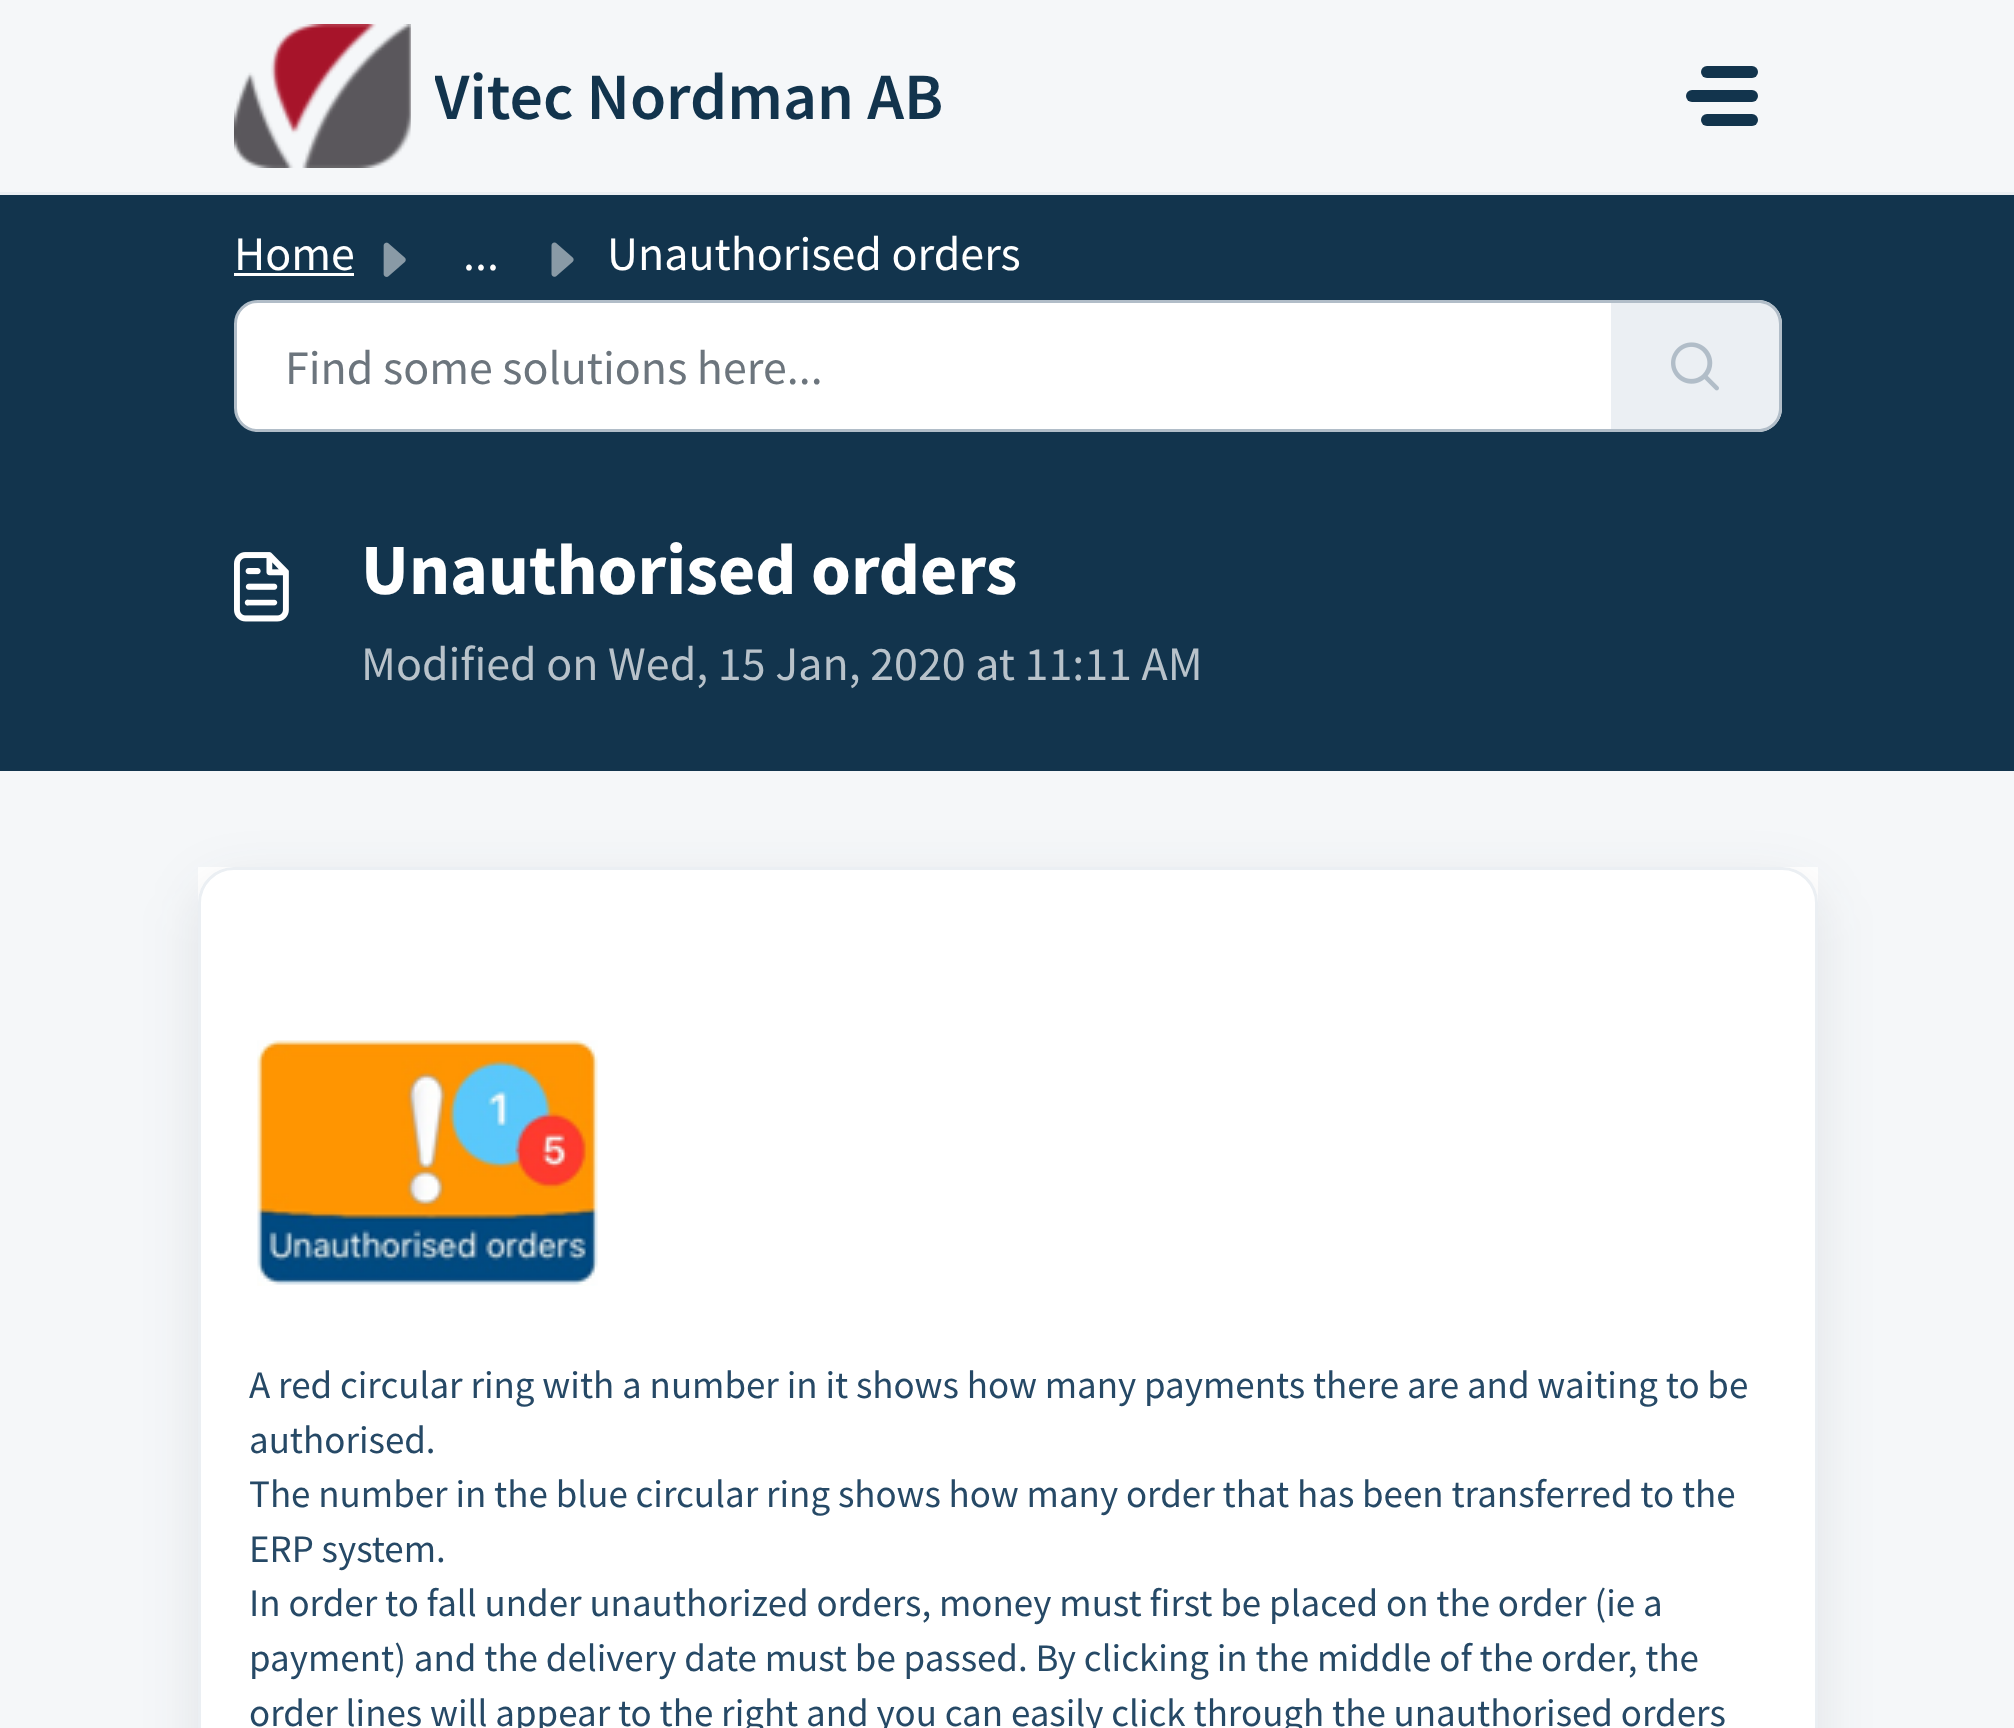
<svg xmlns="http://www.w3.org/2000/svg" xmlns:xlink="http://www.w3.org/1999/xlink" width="2014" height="1728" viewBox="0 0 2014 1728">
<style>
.cls-1{font:600 66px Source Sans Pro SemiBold;fill:#12344d}
.cls-2{font:48px Source Sans Pro;fill:#ffffff}
.cls-3{font:48px Source Sans Pro;fill:#6c757d}
.cls-4{font:bold 72px Source Sans Pro;fill:#ffffff}
.cls-5{font:48px Source Sans Pro;fill:#b8c2ca}
.cls-6{font:39px Source Sans Pro;fill:#264966}
</style>
<defs>
<clipPath id="clip1"><path d="M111 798H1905V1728H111ZM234 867H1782C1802 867 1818 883 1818 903V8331C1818 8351 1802 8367 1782 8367H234C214 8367 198 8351 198 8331V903C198 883 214 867 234 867Z" clip-rule="evenodd"/></clipPath>
<clipPath id="clip2"><rect x="435" y="57" width="507" height="78"/></clipPath>
</defs>
<rect width="100%" height="100%" fill="#f5f7f9"/>
<rect fill="#ebeff3" x="0" y="192" width="2014" height="3"/>
<image xlink:href="image0.png" x="234" y="24" width="177" height="144"/>
<rect fill="#12344d" x="1701" y="66" width="57" height="12" rx="6"/>
<rect fill="#12344d" x="1686" y="90" width="72" height="12" rx="6"/>
<rect fill="#12344d" x="1701" y="114" width="57" height="12" rx="6"/>
<rect fill="#12344d" x="0" y="195" width="2014" height="576"/>
<rect fill="#ffffff" x="234" y="273" width="120" height="3"/>
<image xlink:href="image1.png" x="383" y="242" width="23" height="35"/>
<image xlink:href="image2.png" x="551" y="242" width="23" height="35"/>
<path fill="#ffffff" stroke="#b1bdc8" stroke-width="3" d="M258 301.5H1612.5V430.5H258C245.5 430.5 235.5 420.5 235.5 408V324C235.5 311.5 245.5 301.5 258 301.5Z"/>
<path fill="#ebeff3" d="M1611 300H1758C1771.5 300 1782 310.5 1782 324V408C1782 421.5 1771.5 432 1758 432H1611Z"/>
<path fill="#b1bdc8" fill-rule="evenodd" d="M1611 300H1758C1771 300 1782 311 1782 324V408C1782 421 1771 432 1758 432H1611ZM1611 303H1758C1770 303 1779 312 1779 324V408C1779 420 1770 429 1758 429H1611Z"/>
<image xlink:href="image3.png" x="1671" y="342" width="48" height="49"/>
<image xlink:href="image4.png" x="234" y="552" width="55" height="70"/>
<rect fill="#ffffff" x="198" y="867" width="1620" height="861"/>
<g clip-path="url(#clip1)">
<rect fill="#27313a" fill-opacity="0.1" filter="blur(28.5px)" x="198" y="885" width="1620" height="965" rx="36"/>
</g>
<rect fill="none" stroke="#ebeff3" stroke-width="3" x="199.5" y="868.5" width="1617" height="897" rx="34.5"/>
<image xlink:href="image5.png" x="257" y="1040" width="341" height="246"/>
<g clip-path="url(#clip2)">
<text class="cls-1" x="434" y="119">Vitec Nordman AB</text>
</g>
<text class="cls-2" x="234" y="270">Home</text>
<text class="cls-2" x="463" y="270">...</text>
<text class="cls-2" x="607" y="270">Unauthorised orders</text>
<text class="cls-3" x="285" y="384">Find some solutions here...</text>
<text class="cls-4" x="361" y="594">Unauthorised orders</text>
<text class="cls-5" x="361" y="680">Modified on Wed, 15 Jan, 2020 at 11:11 AM</text>
<text class="cls-6"><tspan x="249" y="1398">A red circular ring with a number in it shows how many payments there are and waiting to be</tspan><tspan x="249" y="1453">authorised.</tspan><tspan x="249" y="1507">The number in the blue circular ring shows how many order that has been transferred to the</tspan><tspan x="249" y="1562">ERP system.</tspan><tspan x="249" y="1616">In order to fall under unauthorized orders, money must first be placed on the order (ie a</tspan><tspan x="249" y="1671">payment) and the delivery date must be passed. By clicking in the middle of the order, the</tspan><tspan x="249" y="1726">order lines will appear to the right and you can easily click through the unauthorised orders</tspan></text>
</svg>
